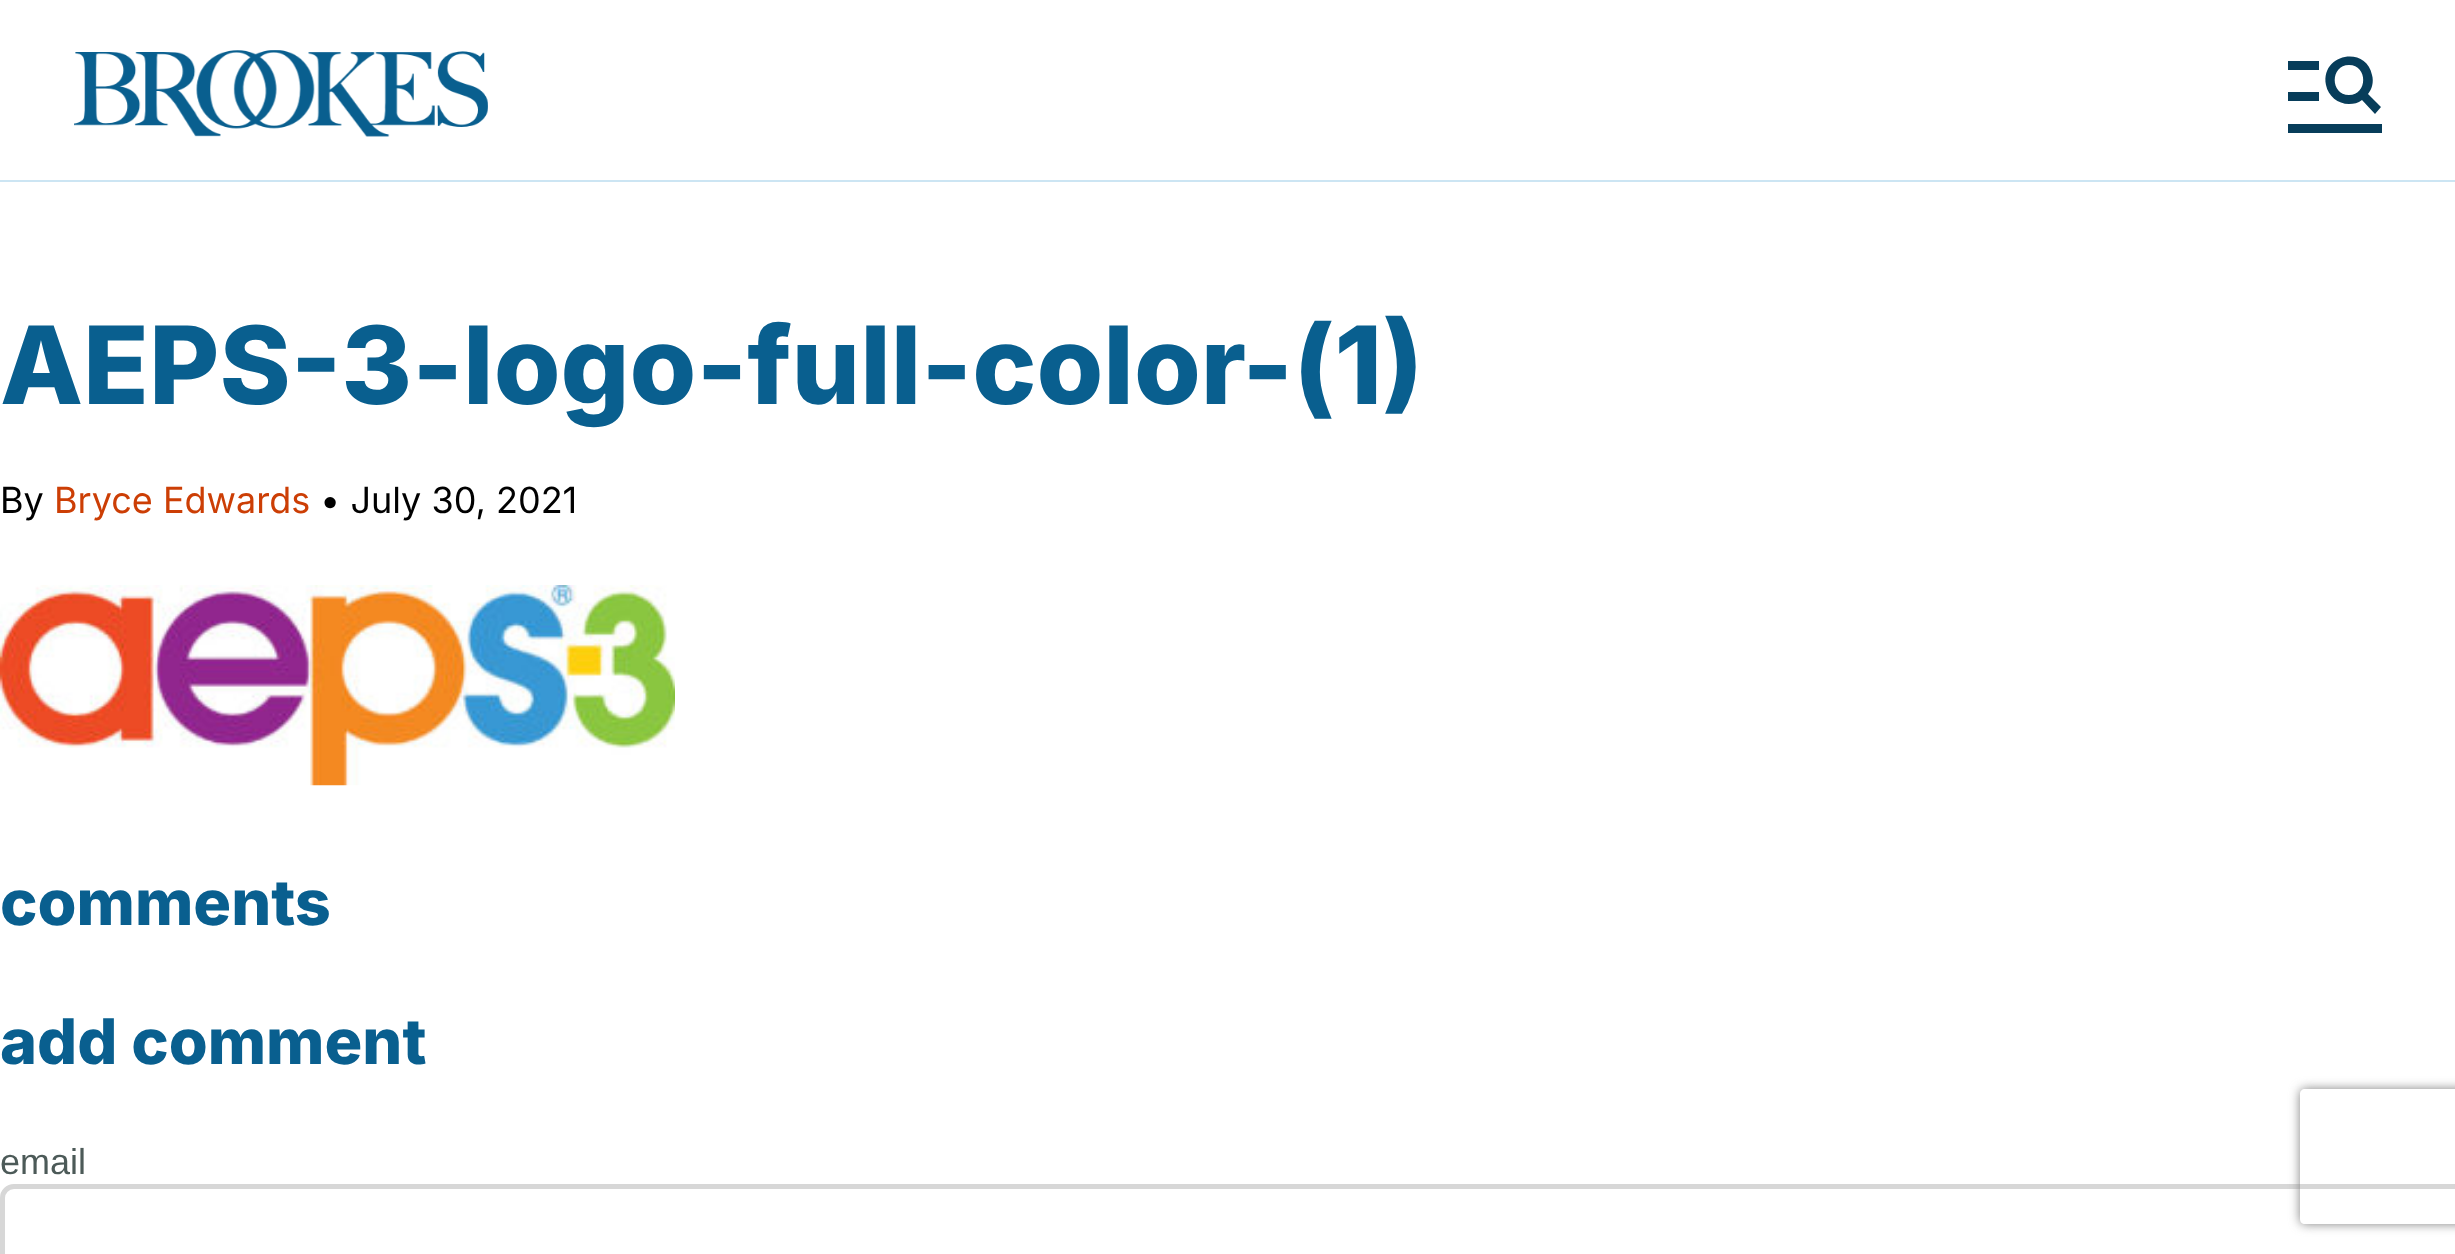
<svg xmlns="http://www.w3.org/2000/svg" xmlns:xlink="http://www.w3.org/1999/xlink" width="2455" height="1254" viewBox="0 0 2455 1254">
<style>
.cls-1{font:800 108px Inter;fill:#095f8f}
.cls-2{font:36px Inter;fill:#000000}
.cls-3{font:36px Inter;fill:#cc3e05}
.cls-4{font:800 63px Inter;fill:#095f8f}
.cls-5{font:36px Liberation Sans;fill:#4c5a58}
</style>
<defs>
<clipPath id="clip1"><path d="M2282 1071H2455V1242H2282ZM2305 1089H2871C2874 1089 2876 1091 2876 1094V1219C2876 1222 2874 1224 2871 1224H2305C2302 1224 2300 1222 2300 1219V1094C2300 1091 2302 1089 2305 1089Z" clip-rule="evenodd"/></clipPath>
</defs>
<rect width="100%" height="100%" fill="#ffffff"/>
<rect fill="#cce5f3" x="0" y="180" width="2455" height="2"/>
<image xlink:href="image0.png" x="74" y="50" width="414" height="87"/>
<path fill="#073d5a" d="M2349 104C2354 104 2358 103 2362 100L2375 114L2381 107L2368 94C2372 89 2374 82 2372 75C2366 45 2320 54 2326 85C2328 96 2338 104 2349 104ZM2349 65C2368 65 2368 95 2349 95C2330 95 2330 65 2349 65ZM2319 70H2288V61H2319ZM2319 101H2288V92H2319ZM2382 124V133H2288V124Z"/>
<image xlink:href="image1.png" x="0" y="585" width="675" height="201"/>
<rect fill="none" stroke="#d7d7d7" stroke-width="5" x="2.5" y="1186.5" width="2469" height="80" rx="11.5"/>
<g clip-path="url(#clip1)">
<rect fill="#808080" filter="blur(5.5px)" x="2300" y="1089" width="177" height="135" rx="5"/>
</g>
<text class="cls-1" x="0" y="404">AEPS-3-logo-full-color-(1)</text>
<text class="cls-2" x="0" y="513">By</text>
<text class="cls-3" x="54" y="513">Bryce Edwards</text>
<text class="cls-2" x="320" y="513">• July 30, 2021</text>
<text class="cls-4" x="0" y="925">comments</text>
<text class="cls-4" x="0" y="1064">add comment</text>
<text class="cls-5" x="0" y="1174">email</text>
</svg>
